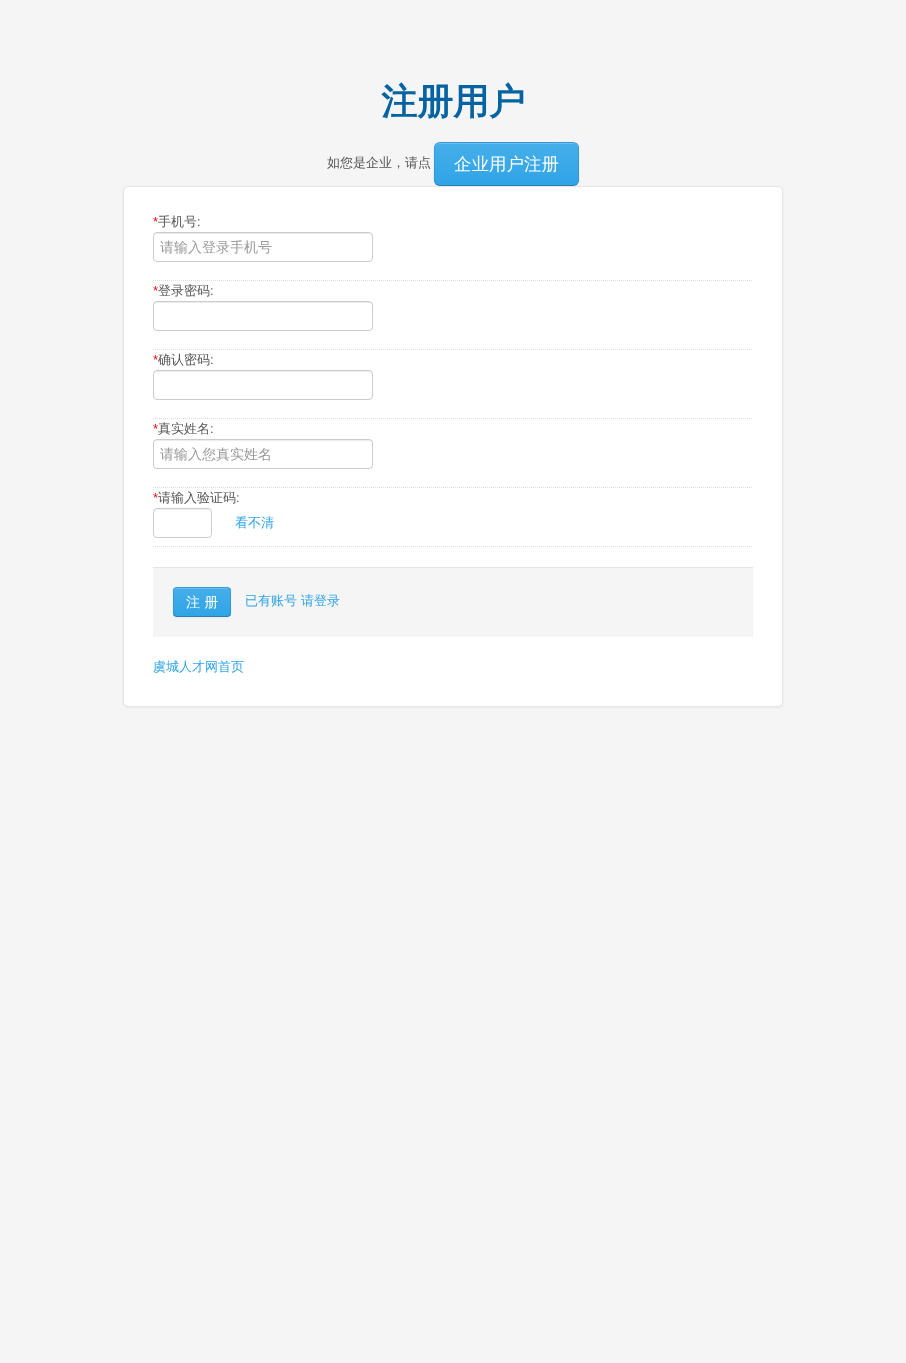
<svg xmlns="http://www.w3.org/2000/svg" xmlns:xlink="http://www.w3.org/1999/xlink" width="906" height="1363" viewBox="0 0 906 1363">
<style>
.cls-1{font:bold 36px WenQuanYi Zen Hei;fill:#0663a2}
.cls-2{font:500 13px WenQuanYi Zen Hei;fill:#555555}
.cls-3{font:500 17.5px WenQuanYi Zen Hei;fill:#ffffff}
.cls-4{font:13px Liberation Sans;fill:#ff0000}
.cls-5{font:13px Liberation Sans;fill:#555555}
.cls-6{font:500 14px WenQuanYi Zen Hei;fill:#999999}
.cls-7{font:500 13px WenQuanYi Zen Hei;fill:#2fa4e7}
.cls-8{font:500 14px WenQuanYi Zen Hei;fill:#ffffff}
</style>
<defs>
<clipPath id="clip1"><rect x="434" y="142" width="145" height="44" rx="6"/></clipPath>
<linearGradient id="g1" gradientUnits="userSpaceOnUse" x1="507" y1="143" x2="507" y2="185"><stop offset="0" stop-color="#46aeea"/><stop offset="1" stop-color="#2fa4e7"/></linearGradient>
<clipPath id="clip2"><rect x="173" y="587" width="58" height="30" rx="4"/></clipPath>
<linearGradient id="g2" gradientUnits="userSpaceOnUse" x1="202" y1="588" x2="202" y2="616"><stop offset="0" stop-color="#46aeea"/><stop offset="1" stop-color="#2fa4e7"/></linearGradient>
</defs>
<rect width="100%" height="100%" fill="#f5f5f5"/>
<rect fill="#000000" fill-opacity="0.05" filter="blur(1px)" x="434" y="143" width="145" height="44" rx="6"/>
<rect fill="#3daae9" x="434" y="142" width="145" height="44" rx="6"/>
<g clip-path="url(#clip1)">
<rect fill="url(#g1)" x="434" y="143" width="145" height="42"/>
</g>
<path fill="#6bbeee" d="M440 144H573C576 144 578 146 578 149V148C578 145 576 143 573 143H440C437 143 435 145 435 148V149C435 146 437 144 440 144Z"/>
<path fill="none" stroke="#000000" stroke-opacity="0.25" d="M577 184C576 185 574.5 185.5 573 185.5H440C438.5 185.5 437 185 436 184"/>
<path fill="none" stroke="#000000" stroke-opacity="0.1" d="M436 184C433 180.5 434.5 173 434.5 169.5C434.5 138 429.5 142.5 462 142.5H551C583.5 142.5 578.5 138 578.5 169.5C578.5 173 580 180.5 577 184"/>
<rect fill="#000000" fill-opacity="0.05" filter="blur(1px)" x="123" y="187" width="660" height="521" rx="5"/>
<rect fill="#ffffff" stroke="#e5e5e5" x="123.5" y="186.5" width="659" height="520" rx="4.5"/>
<path fill="none" stroke="#dddddd" stroke-dasharray="1 1" d="M153 280.5H753"/>
<path fill="#ececec" d="M157 234H369C371 234 372 235 372 237V236C372 234 371 233 369 233H157C155 233 154 234 154 236V237C154 235 155 234 157 234Z"/>
<rect fill="none" stroke="#cccccc" x="153.5" y="232.5" width="219" height="29" rx="3.5"/>
<path fill="none" stroke="#dddddd" stroke-dasharray="1 1" d="M153 349.5H753"/>
<path fill="#ececec" d="M157 303H369C371 303 372 304 372 306V305C372 303 371 302 369 302H157C155 302 154 303 154 305V306C154 304 155 303 157 303Z"/>
<rect fill="none" stroke="#cccccc" x="153.5" y="301.5" width="219" height="29" rx="3.5"/>
<path fill="none" stroke="#dddddd" stroke-dasharray="1 1" d="M153 418.5H753"/>
<path fill="#ececec" d="M157 372H369C371 372 372 373 372 375V374C372 372 371 371 369 371H157C155 371 154 372 154 374V375C154 373 155 372 157 372Z"/>
<rect fill="none" stroke="#cccccc" x="153.5" y="370.5" width="219" height="29" rx="3.5"/>
<path fill="none" stroke="#dddddd" stroke-dasharray="1 1" d="M153 487.5H753"/>
<path fill="#ececec" d="M157 441H369C371 441 372 442 372 444V443C372 441 371 440 369 440H157C155 440 154 441 154 443V444C154 442 155 441 157 441Z"/>
<rect fill="none" stroke="#cccccc" x="153.5" y="439.5" width="219" height="29" rx="3.5"/>
<path fill="none" stroke="#dddddd" stroke-dasharray="1 1" d="M153 546.5H753"/>
<path fill="#ececec" d="M157 510H208C210 510 211 511 211 513C211 507 204 509 200 509H166C161 509 154 507 154 513C154 511 155 510 157 510Z"/>
<rect fill="none" stroke="#cccccc" x="153.5" y="508.5" width="58" height="29" rx="3.5"/>
<rect fill="#f5f5f5" x="153" y="568" width="600" height="69"/>
<rect fill="#e5e5e5" x="153" y="567" width="600" height="1"/>
<rect fill="#000000" fill-opacity="0.05" filter="blur(1px)" x="173" y="588" width="58" height="30" rx="4"/>
<rect fill="#3daae9" x="173" y="587" width="58" height="30" rx="4"/>
<g clip-path="url(#clip2)">
<rect fill="url(#g2)" x="173" y="588" width="58" height="28"/>
</g>
<path fill="#6bbeee" d="M177 589H227C229 589 230 590 230 592C230 586 223 588 219 588H185C181 588 174 586 174 592C174 590 175 589 177 589Z"/>
<path fill="none" stroke="#000000" stroke-opacity="0.25" d="M229.5 615.5L227.5 616.5H176.5L174.5 615.5"/>
<path fill="none" stroke="#000000" stroke-opacity="0.1" d="M174.5 615.5C172.5 613.5 173.5 605 173.5 602C173.5 587 171 587.5 185.5 587.5H218.5C233 587.5 230.5 587 230.5 602C230.5 605 231.5 613.5 229.5 615.5"/>
<text class="cls-1" x="381" y="114">注册用户</text>
<text class="cls-2" x="327" y="167">如您是企业，请点</text>
<text class="cls-3" x="454" y="170">企业用户注册</text>
<text class="cls-4" x="153" y="226">*</text>
<text class="cls-2" x="158" y="226">手机号</text>
<text class="cls-5" x="197" y="226">:</text>
<text class="cls-6" x="160" y="252">请输入登录手机号</text>
<text class="cls-4" x="153" y="295">*</text>
<text class="cls-2" x="158" y="295">登录密码</text>
<text class="cls-5" x="210" y="295">:</text>
<text class="cls-4" x="153" y="364">*</text>
<text class="cls-2" x="158" y="364">确认密码</text>
<text class="cls-5" x="210" y="364">:</text>
<text class="cls-4" x="153" y="433">*</text>
<text class="cls-2" x="158" y="433">真实姓名</text>
<text class="cls-5" x="210" y="433">:</text>
<text class="cls-6" x="160" y="459">请输入您真实姓名</text>
<text class="cls-4" x="153" y="502">*</text>
<text class="cls-2" x="158" y="502">请输入验证码</text>
<text class="cls-5" x="236" y="502">:</text>
<text class="cls-7" x="235" y="527">看不清</text>
<text class="cls-8" x="186" y="607">注 册</text>
<text class="cls-7" x="245" y="605">已有账号 请登录</text>
<text class="cls-7" x="153" y="671">虞城人才网首页</text>
</svg>
